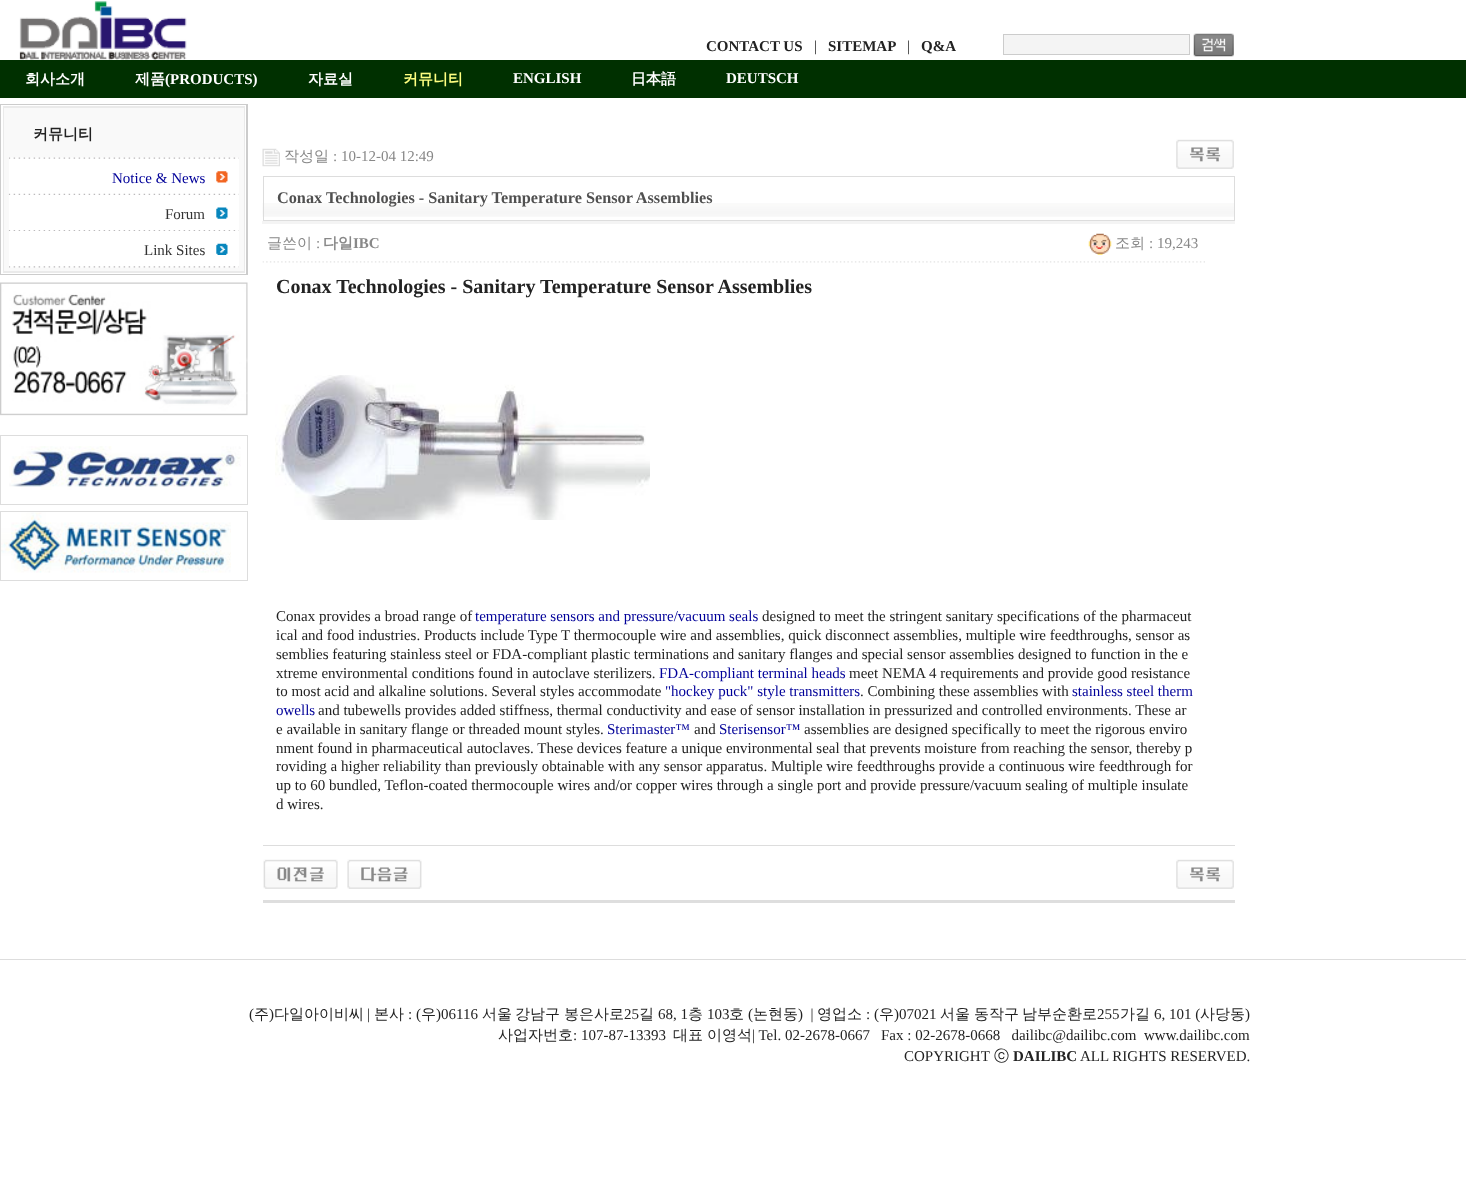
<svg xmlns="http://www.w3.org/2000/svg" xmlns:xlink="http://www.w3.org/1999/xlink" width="1466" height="1202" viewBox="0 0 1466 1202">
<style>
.cls-1{font:bold 15px Liberation Serif;fill:#222222}
.cls-2{font:15px Liberation Serif;fill:#222222}
.cls-3{font:bold 15px WenQuanYi Zen Hei;fill:#ffffff}
.cls-4{font:bold 15px Liberation Serif;fill:#ffffff}
.cls-5{font:bold 15px WenQuanYi Zen Hei;fill:#ffff80}
.cls-6{font:bold 15px WenQuanYi Zen Hei;fill:#222222}
.cls-7{font:15px Liberation Serif;fill:#000099}
.cls-8{font:15px Liberation Serif;fill:#333333}
.cls-9{font:500 15px WenQuanYi Zen Hei;fill:#888888}
.cls-10{font:15px Liberation Serif;fill:#888888}
.cls-11{font:bold 16.25px Liberation Serif;fill:#505050}
.cls-12{font:bold 15px WenQuanYi Zen Hei;fill:#888888}
.cls-13{font:bold 15px Liberation Serif;fill:#888888}
.cls-14{font:bold 20px Liberation Serif;fill:#222222}
.cls-15{font:500 15px WenQuanYi Zen Hei;fill:#222222}
</style>
<rect width="100%" height="100%" fill="#ffffff"/>
<image xlink:href="image0.png" x="19" y="1" width="168" height="59"/>
<rect fill="#f4f4f4" stroke="#cccccc" x="1003.5" y="34.5" width="186" height="20"/>
<image xlink:href="image1.png" x="1193" y="33" width="41" height="24"/>
<rect fill="#003000" x="0" y="60" width="1466" height="38"/>
<rect fill="#cccccc" x="0" y="104" width="248" height="171"/>
<rect fill="#ffffff" x="1" y="105" width="245" height="169"/>
<rect fill="#eaeaea" x="3" y="106" width="242" height="167"/>
<rect fill="#f9f9f9" x="4" y="108" width="240" height="163"/>
<image xlink:href="image2.png" x="9" y="157" width="230" height="2"/>
<rect fill="#ffffff" x="9" y="159" width="230" height="35"/>
<image xlink:href="image3.png" x="216" y="171" width="12" height="12"/>
<image xlink:href="image4.png" x="8" y="193" width="231" height="2"/>
<rect fill="#ffffff" x="9" y="195" width="230" height="35"/>
<image xlink:href="image5.png" x="216" y="207" width="12" height="12"/>
<image xlink:href="image6.png" x="8" y="230" width="231" height="2"/>
<rect fill="#ffffff" x="9" y="231" width="230" height="35"/>
<image xlink:href="image7.png" x="216" y="243" width="12" height="12"/>
<image xlink:href="image8.png" x="9" y="266" width="230" height="2"/>
<image xlink:href="image9.png" x="0" y="282" width="248" height="134"/>
<rect fill="none" stroke="#dddddd" x="0.5" y="435.5" width="247" height="69"/>
<image xlink:href="image10.png" x="9" y="446" width="232" height="44"/>
<rect fill="none" stroke="#dddddd" x="0.5" y="511.5" width="247" height="69"/>
<image xlink:href="image11.png" x="1" y="512" width="230" height="61"/>
<image xlink:href="image12.png" x="262" y="148" width="18" height="19"/>
<image xlink:href="image13.png" x="1176" y="139" width="58" height="30"/>
<image xlink:href="image14.png" x="262" y="203" width="972" height="14"/>
<rect fill="none" stroke="#dddddd" x="263.5" y="176.5" width="971" height="44"/>
<rect fill="#f4f4f4" x="262" y="221" width="973" height="3"/>
<image xlink:href="image15.png" x="262" y="261" width="943" height="2"/>
<image xlink:href="image16.png" x="1088" y="233" width="24" height="22"/>
<image xlink:href="image17.png" x="275" y="375" width="375" height="145"/>
<rect fill="#dddddd" x="263" y="845" width="972" height="1"/>
<image xlink:href="image18.png" x="263" y="859" width="75" height="30"/>
<image xlink:href="image19.png" x="347" y="859" width="75" height="30"/>
<image xlink:href="image13.png" x="1176" y="859" width="58" height="30"/>
<rect fill="#dedede" x="263" y="900" width="972" height="3"/>
<rect fill="#dddddd" x="0" y="959" width="1466" height="1"/>
<text class="cls-1" x="706" y="51">CONTACT US</text>
<text class="cls-2" x="814" y="51">|</text>
<text class="cls-1" x="828" y="51">SITEMAP</text>
<text class="cls-2" x="907" y="51">|</text>
<text class="cls-1" x="921" y="51">Q&amp;A</text>
<text class="cls-3" x="25" y="84">회사소개</text>
<text class="cls-3" x="135" y="84">제품</text>
<text class="cls-4" x="165" y="84">(PRODUCTS)</text>
<text class="cls-3" x="308" y="84">자료실</text>
<text class="cls-5" x="403" y="84">커뮤니티</text>
<text class="cls-4" x="513" y="83">ENGLISH</text>
<text class="cls-3" x="631" y="84">日本語</text>
<text class="cls-4" x="726" y="83">DEUTSCH</text>
<text class="cls-6" x="33" y="139">커뮤니티</text>
<text class="cls-7" x="112" y="183">Notice &amp; News</text>
<text class="cls-8" x="165" y="219">Forum</text>
<text class="cls-8" x="144" y="255">Link Sites</text>
<text class="cls-9" x="284" y="161">작성일</text>
<text class="cls-10" x="333" y="161">: 10-12-04 12:49</text>
<text class="cls-11" x="277" y="203">Conax Technologies - Sanitary Temperature Sensor Assemblies</text>
<text class="cls-9" x="267" y="248">글쓴이</text>
<text class="cls-10" x="316" y="248">:</text>
<text class="cls-12" x="323" y="248">다일</text>
<text class="cls-13" x="353" y="248">IBC</text>
<text class="cls-9" x="1115" y="248">조회</text>
<text class="cls-10" x="1149" y="248">: 19,243</text>
<text class="cls-14" x="276" y="293">Conax Technologies - Sanitary Temperature Sensor Assemblies</text>
<text class="cls-2" x="276" y="621">Conax provides a broad range of</text>
<text class="cls-7" x="475" y="621">temperature sensors and pressure/vacuum seals</text>
<text class="cls-2" x="762" y="621">designed to meet the stringent sanitary specifications of the pharmaceut</text>
<text class="cls-2"><tspan x="276" y="640">ical and food industries. Products include Type T thermocouple wire and assemblies, quick disconnect assemblies, multiple wire feedthroughs, sensor as</tspan><tspan x="276" y="659">semblies featuring stainless steel or FDA-compliant plastic terminations and sanitary flanges and special sensor assemblies designed to function in the e</tspan><tspan x="276" y="678">xtreme environmental conditions found in autoclave sterilizers.</tspan></text>
<text class="cls-7" x="659" y="678">FDA-compliant terminal heads</text>
<text class="cls-2" x="849" y="678">meet NEMA 4 requirements and provide good resistance</text>
<text class="cls-2" x="276" y="696">to most acid and alkaline solutions. Several styles accommodate</text>
<text class="cls-7" x="665" y="696">"hockey puck" style transmitters</text>
<text class="cls-2" x="860" y="696">. Combining these assemblies with</text>
<text class="cls-7" x="1072" y="696">stainless steel therm</text>
<text class="cls-7" x="276" y="715">owells</text>
<text class="cls-2" x="318" y="715">and tubewells provides added stiffness, thermal conductivity and ease of sensor installation in pressurized and controlled environments. These ar</text>
<text class="cls-2" x="276" y="734">e available in sanitary flange or threaded mount styles.</text>
<text class="cls-7" x="607" y="734">Sterimaster™</text>
<text class="cls-2" x="694" y="734">and</text>
<text class="cls-7" x="719" y="734">Sterisensor™</text>
<text class="cls-2" x="804" y="734">assemblies are designed specifically to meet the rigorous enviro</text>
<text class="cls-2"><tspan x="276" y="753">nment found in pharmaceutical autoclaves. These devices feature a unique environmental seal that prevents moisture from reaching the sensor, thereby p</tspan><tspan x="276" y="771">roviding a higher reliability than previously obtainable with any sensor apparatus. Multiple wire feedthroughs provide a continuous wire feedthrough for</tspan><tspan x="276" y="790">up to 60 bundled, Teflon-coated thermocouple wires and/or copper wires through a single port and provide pressure/vacuum sealing of multiple insulate</tspan><tspan x="276" y="809">d wires.</tspan></text>
<text class="cls-2" x="249" y="1019">(</text>
<text class="cls-15" x="254" y="1019">주</text>
<text class="cls-2" x="269" y="1019">)</text>
<text class="cls-15" x="274" y="1019">다일아이비씨</text>
<text class="cls-2" x="367" y="1019">|</text>
<text class="cls-15" x="374" y="1019">본사</text>
<text class="cls-2" x="408" y="1019">: (</text>
<text class="cls-15" x="421" y="1019">우</text>
<text class="cls-2" x="436" y="1019">)06116</text>
<text class="cls-15" x="482" y="1019">서울</text>
<text class="cls-15" x="515" y="1019">강남구</text>
<text class="cls-15" x="564" y="1019">봉은사로</text>
<text class="cls-2" x="624" y="1019">25</text>
<text class="cls-15" x="639" y="1019">길</text>
<text class="cls-2" x="658" y="1019">68, 1</text>
<text class="cls-15" x="688" y="1019">층</text>
<text class="cls-2" x="707" y="1019">103</text>
<text class="cls-15" x="729" y="1019">호</text>
<text class="cls-2" x="748" y="1019">(</text>
<text class="cls-15" x="753" y="1019">논현동</text>
<text class="cls-2" xml:space="preserve" x="798" y="1019">)  |</text>
<text class="cls-15" x="817" y="1019">영업소</text>
<text class="cls-2" x="866" y="1019">: (</text>
<text class="cls-15" x="879" y="1019">우</text>
<text class="cls-2" x="894" y="1019">)07021</text>
<text class="cls-15" x="940" y="1019">서울</text>
<text class="cls-15" x="974" y="1019">동작구</text>
<text class="cls-15" x="1022" y="1019">남부순환로</text>
<text class="cls-2" x="1097" y="1019">255</text>
<text class="cls-15" x="1120" y="1019">가길</text>
<text class="cls-2" x="1154" y="1019">6, 101 (</text>
<text class="cls-15" x="1200" y="1019">사당동</text>
<text class="cls-2" x="1245" y="1019">)</text>
<text class="cls-15" x="498" y="1040">사업자번호</text>
<text class="cls-2" x="573" y="1040">: 107-87-13393</text>
<text class="cls-15" x="673" y="1040">대표</text>
<text class="cls-15" x="707" y="1040">이영석</text>
<text class="cls-2" x="752" y="1040">| Tel. 02-2678-0667</text>
<text class="cls-2" xml:space="preserve" x="881" y="1040">Fax : 02-2678-0668   dailibc@dailibc.com</text>
<text class="cls-2" x="1144" y="1040">www.dailibc.com</text>
<text class="cls-2" x="904" y="1061">COPYRIGHT</text>
<text class="cls-15" x="994" y="1061">ⓒ</text>
<text class="cls-1" x="1013" y="1061">DAILIBC</text>
<text class="cls-2" x="1080" y="1061">ALL RIGHTS RESERVED.</text>
</svg>
